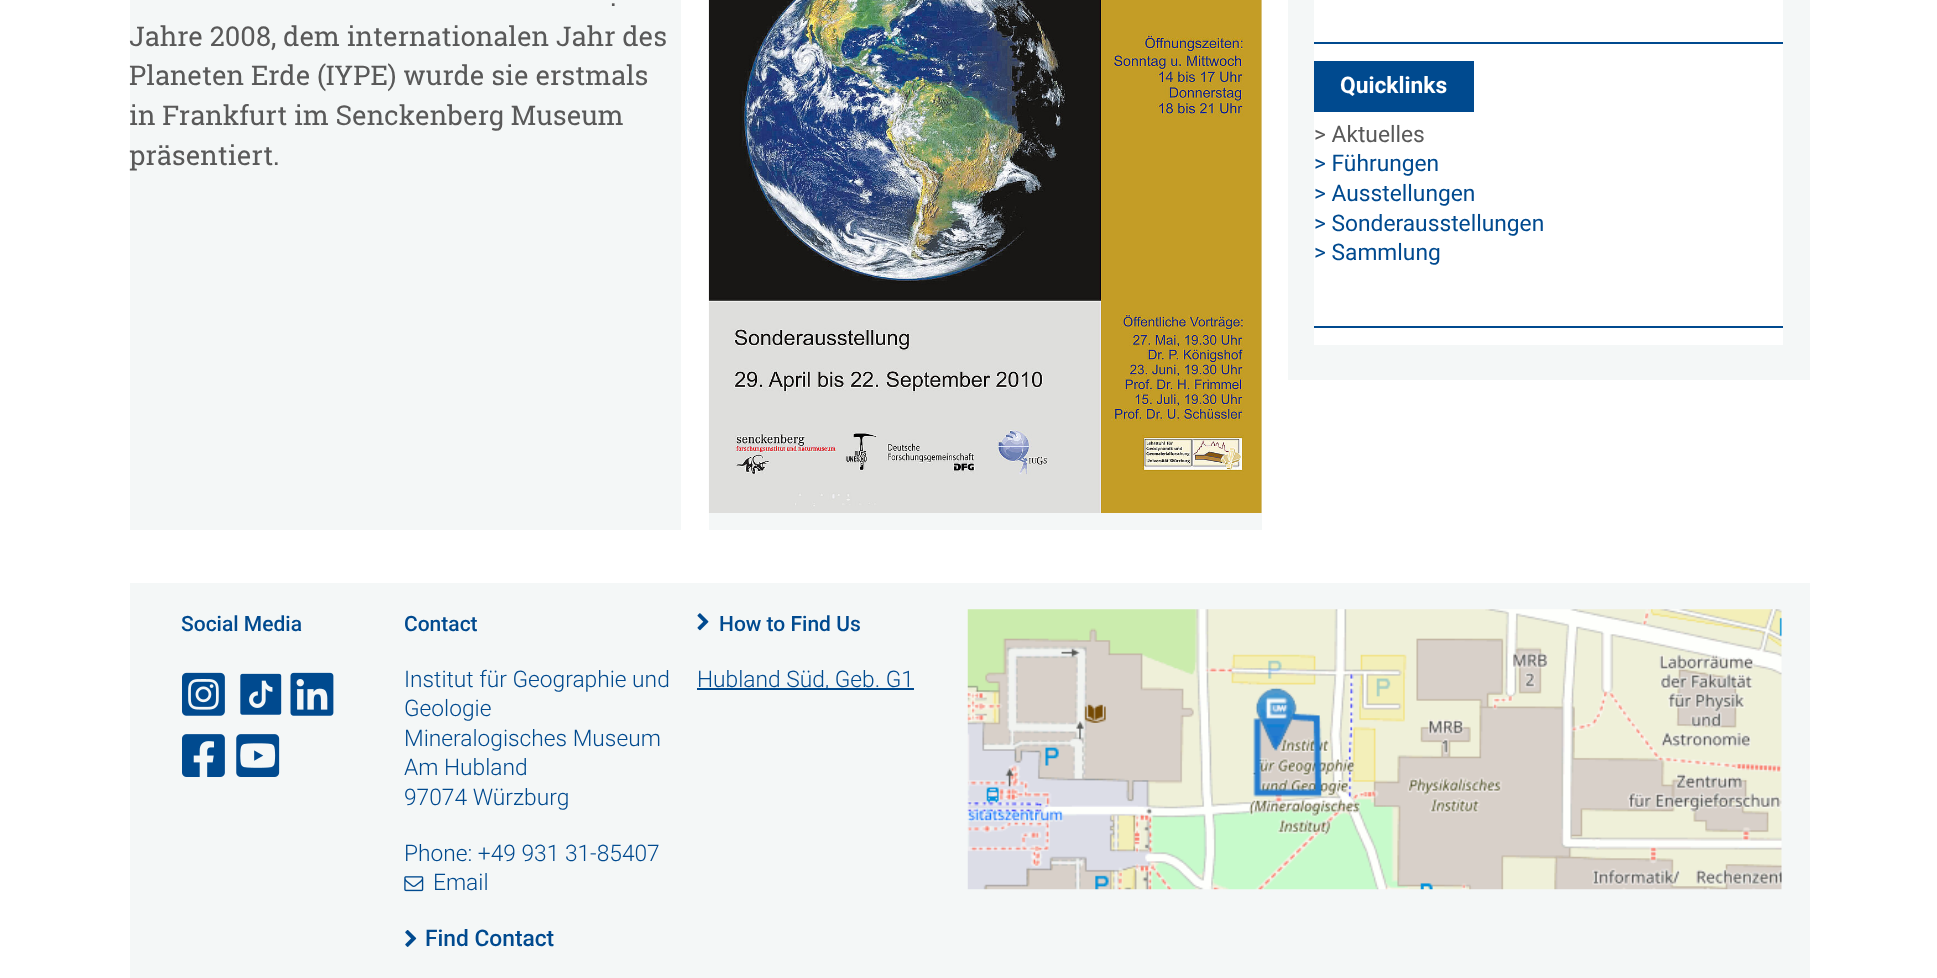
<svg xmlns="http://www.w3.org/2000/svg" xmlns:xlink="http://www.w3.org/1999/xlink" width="1937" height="978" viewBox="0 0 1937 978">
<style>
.cls-1{font:27.25px Roboto Slab;fill:#595959}
.cls-2{font:bold 22.75px Roboto;fill:#ffffff}
.cls-3{font:22.75px Roboto;fill:#595959}
.cls-4{font:22.75px Roboto;fill:#004a8f}
.cls-5{font:500 21px Roboto;fill:#004a8f}
.cls-6{font:300 22.75px Roboto;fill:#004a8f}
.cls-7{font:500 22.75px Roboto;fill:#004a8f}
</style>
<rect width="100%" height="100%" fill="#ffffff"/>
<rect fill="#f4f7f7" x="130" y="0" width="551" height="530"/>
<rect fill="#f4f7f7" x="709" y="0" width="553" height="530"/>
<image xlink:href="image0.png" x="708" y="0" width="554" height="513"/>
<rect fill="#f4f7f7" x="1783" y="0" width="27" height="345"/>
<rect fill="#f4f7f7" x="1314" y="345" width="496" height="35"/>
<rect fill="#f4f7f7" x="1288" y="0" width="26" height="380"/>
<rect fill="#004a8f" x="1314" y="42" width="469" height="2"/>
<rect fill="#004a8f" x="1314" y="61" width="160" height="51"/>
<rect fill="#004a8f" x="1314" y="326" width="469" height="2"/>
<rect fill="#f4f7f7" x="130" y="583" width="1680" height="395"/>
<image xlink:href="image1.png" x="182" y="672" width="43" height="44"/>
<image xlink:href="image2.png" x="240" y="673" width="42" height="42"/>
<image xlink:href="image3.png" x="290" y="672" width="44" height="44"/>
<image xlink:href="image4.png" x="182" y="734" width="43" height="43"/>
<image xlink:href="image5.png" x="236" y="734" width="44" height="43"/>
<image xlink:href="image6.png" x="404" y="876" width="20" height="16"/>
<image xlink:href="image7.png" x="405" y="930" width="12" height="17"/>
<image xlink:href="image8.png" x="697" y="613" width="12" height="18"/>
<rect fill="#004a8f" x="697" y="688" width="217" height="2"/>
<image xlink:href="image9.png" x="967" y="609" width="815" height="281"/>
<text class="cls-1" x="610" y="6">.</text>
<text class="cls-1"><tspan x="129" y="46">Jahre 2008, dem internationalen Jahr des</tspan><tspan x="129" y="85">Planeten Erde (IYPE) wurde sie erstmals</tspan><tspan x="129" y="125">in Frankfurt im Senckenberg Museum</tspan><tspan x="129" y="165">präsentiert.</tspan></text>
<text class="cls-2" x="1340" y="93">Quicklinks</text>
<text class="cls-3" x="1314" y="142">&gt; Aktuelles</text>
<text class="cls-4"><tspan x="1314" y="171">&gt; Führungen</tspan><tspan x="1314" y="201">&gt; Ausstellungen</tspan><tspan x="1314" y="231">&gt; Sonderausstellungen</tspan><tspan x="1314" y="260">&gt; Sammlung</tspan></text>
<text class="cls-5" x="181" y="631">Social Media</text>
<text class="cls-5" x="404" y="631">Contact</text>
<text class="cls-6"><tspan x="404" y="687">Institut für Geographie und</tspan><tspan x="404" y="716">Geologie</tspan><tspan x="404" y="746">Mineralogisches Museum</tspan><tspan x="404" y="775">Am Hubland</tspan><tspan x="404" y="805">97074 Würzburg</tspan></text>
<text class="cls-6" x="404" y="861">Phone: +49 931 31-85407</text>
<text class="cls-6" x="433" y="890">Email</text>
<text class="cls-7" x="425" y="946">Find Contact</text>
<text class="cls-5" x="719" y="631">How to Find Us</text>
<text class="cls-6" x="697" y="687">Hubland Süd, Geb. G1</text>
</svg>
